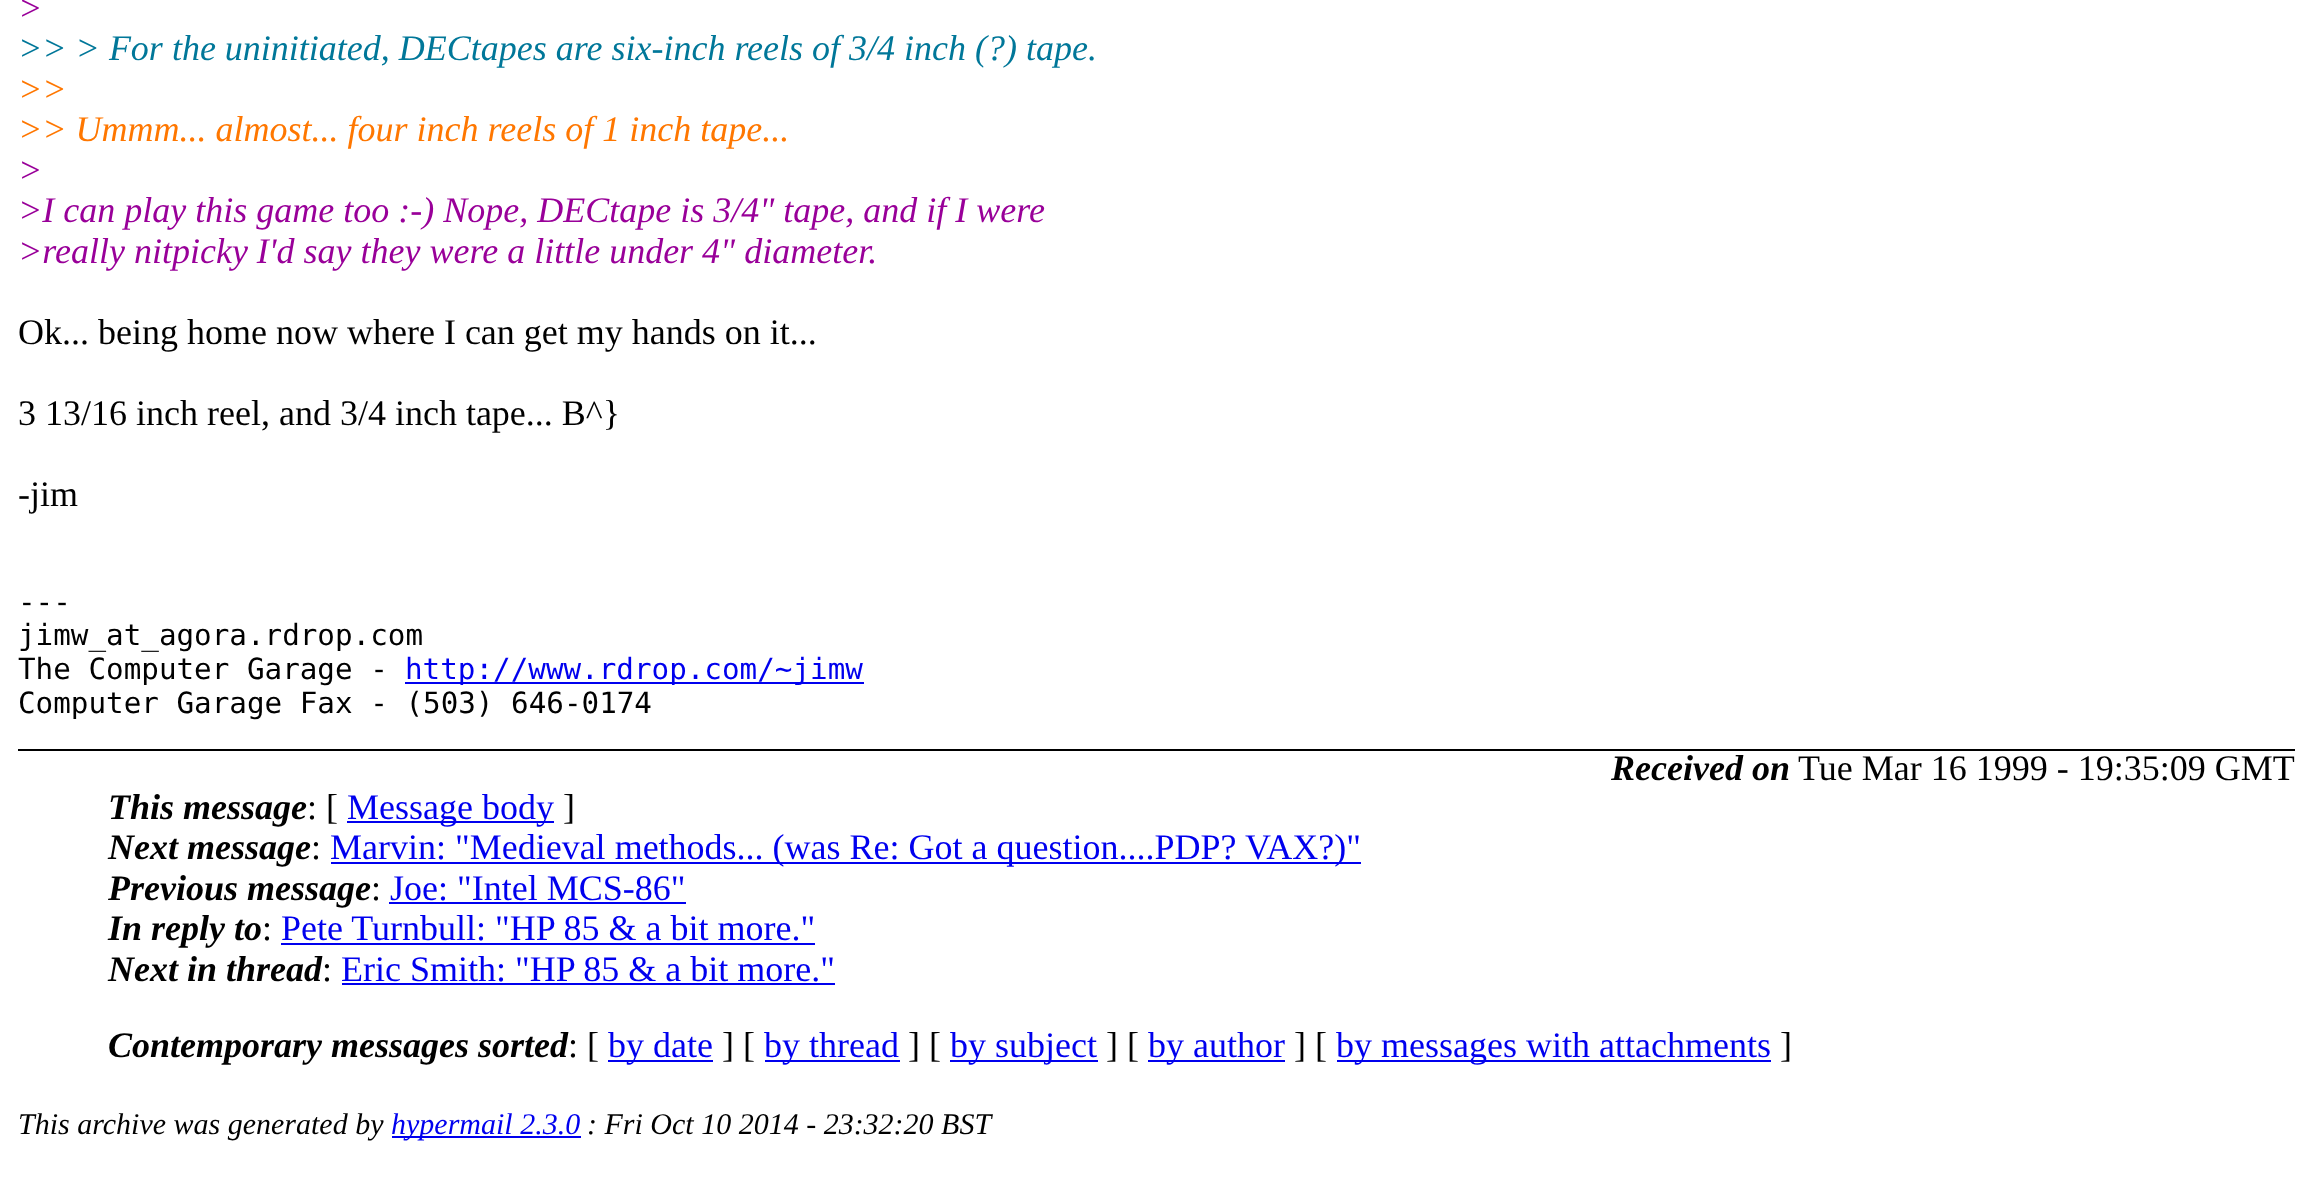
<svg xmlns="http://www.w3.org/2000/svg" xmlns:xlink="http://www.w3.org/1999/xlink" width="2313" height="1177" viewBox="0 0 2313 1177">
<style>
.cls-1{font:italic 36px Liberation Serif;fill:#990099}
.cls-2{font:italic 36px Liberation Serif;fill:#007799}
.cls-3{font:italic 36px Liberation Serif;fill:#ff7700}
.cls-4{font:36px Liberation Serif;fill:#000000}
.cls-5{font:29.25px DejaVu Sans Mono;fill:#000000}
.cls-6{font:29.25px DejaVu Sans Mono;fill:#0000ee}
.cls-7{font:italic bold 36px Liberation Serif;fill:#000000}
.cls-8{font:36px Liberation Serif;fill:#0000ee}
.cls-9{font:italic 30px Liberation Serif;fill:#000000}
.cls-10{font:italic 30px Liberation Serif;fill:#0000ee}
</style>
<rect width="100%" height="100%" fill="#ffffff"/>
<rect fill="#0000ee" x="405" y="682" width="459" height="2"/>
<rect fill="#000000" x="18" y="749" width="2277" height="2"/>
<rect fill="#0000ee" x="347" y="821" width="207" height="2"/>
<rect fill="#0000ee" x="331" y="862" width="1030" height="2"/>
<rect fill="#0000ee" x="389" y="902" width="297" height="2"/>
<rect fill="#0000ee" x="281" y="943" width="534" height="2"/>
<rect fill="#0000ee" x="342" y="983" width="493" height="2"/>
<rect fill="#0000ee" x="608" y="1060" width="105" height="2"/>
<rect fill="#0000ee" x="765" y="1060" width="135" height="2"/>
<rect fill="#0000ee" x="950" y="1060" width="148" height="2"/>
<rect fill="#0000ee" x="1148" y="1060" width="137" height="2"/>
<rect fill="#0000ee" x="1337" y="1060" width="434" height="2"/>
<rect fill="#0000ee" x="392" y="1136" width="189" height="2"/>
<text class="cls-1" x="18" y="20">&gt;</text>
<text class="cls-2" x="18" y="60">&gt;&gt; &gt; For the uninitiated, DECtapes are six-inch reels of 3/4 inch (?) tape.</text>
<text class="cls-3"><tspan x="18" y="101">&gt;&gt;</tspan><tspan x="18" y="141">&gt;&gt; Ummm... almost... four inch reels of 1 inch tape...</tspan></text>
<text class="cls-1"><tspan x="18" y="182">&gt;</tspan><tspan x="18" y="222">&gt;I can play this game too :-) Nope, DECtape is 3/4" tape, and if I were</tspan><tspan x="18" y="263">&gt;really nitpicky I'd say they were a little under 4" diameter.</tspan></text>
<text class="cls-4" x="18" y="344">Ok... being home now where I can get my hands on it...</text>
<text class="cls-4" x="18" y="425">3 13/16 inch reel, and 3/4 inch tape... B^}</text>
<text class="cls-4" x="18" y="506">-jim</text>
<text class="cls-5"><tspan x="18" y="612">---</tspan><tspan x="18" y="645">jimw_at_agora.rdrop.com</tspan><tspan x="18" y="679">The Computer Garage -</tspan></text>
<text class="cls-6" x="405" y="679">http://www.rdrop.com/~jimw</text>
<text class="cls-5" x="18" y="713">Computer Garage Fax - (503) 646-0174</text>
<text class="cls-7" x="1611" y="780">Received on</text>
<text class="cls-4" x="1798" y="780">Tue Mar 16 1999 - 19:35:09 GMT</text>
<text class="cls-7" x="108" y="819">This message</text>
<text class="cls-4" x="307" y="819">: [</text>
<text class="cls-8" x="347" y="819">Message body</text>
<text class="cls-4" x="563" y="819">]</text>
<text class="cls-7" x="108" y="859">Next message</text>
<text class="cls-4" x="311" y="859">:</text>
<text class="cls-8" x="330" y="859">Marvin: "Medieval methods... (was Re: Got a question....PDP? VAX?)"</text>
<text class="cls-7" x="108" y="900">Previous message</text>
<text class="cls-4" x="371" y="900">:</text>
<text class="cls-8" x="390" y="900">Joe: "Intel MCS-86"</text>
<text class="cls-7" x="108" y="940">In reply to</text>
<text class="cls-4" x="262" y="940">:</text>
<text class="cls-8" x="281" y="940">Pete Turnbull: "HP 85 &amp; a bit more."</text>
<text class="cls-7" x="108" y="981">Next in thread</text>
<text class="cls-4" x="322" y="981">:</text>
<text class="cls-8" x="341" y="981">Eric Smith: "HP 85 &amp; a bit more."</text>
<text class="cls-7" x="108" y="1057">Contemporary messages sorted</text>
<text class="cls-4" x="568" y="1057">: [</text>
<text class="cls-8" x="608" y="1057">by date</text>
<text class="cls-4" x="722" y="1057">] [</text>
<text class="cls-8" x="764" y="1057">by thread</text>
<text class="cls-4" x="908" y="1057">] [</text>
<text class="cls-8" x="950" y="1057">by subject</text>
<text class="cls-4" x="1106" y="1057">] [</text>
<text class="cls-8" x="1148" y="1057">by author</text>
<text class="cls-4" x="1294" y="1057">] [</text>
<text class="cls-8" x="1336" y="1057">by messages with attachments</text>
<text class="cls-4" x="1780" y="1057">]</text>
<text class="cls-9" x="18" y="1134">This archive was generated by</text>
<text class="cls-10" x="391" y="1134">hypermail 2.3.0</text>
<text class="cls-9" x="587" y="1134">: Fri Oct 10 2014 - 23:32:20 BST</text>
</svg>
